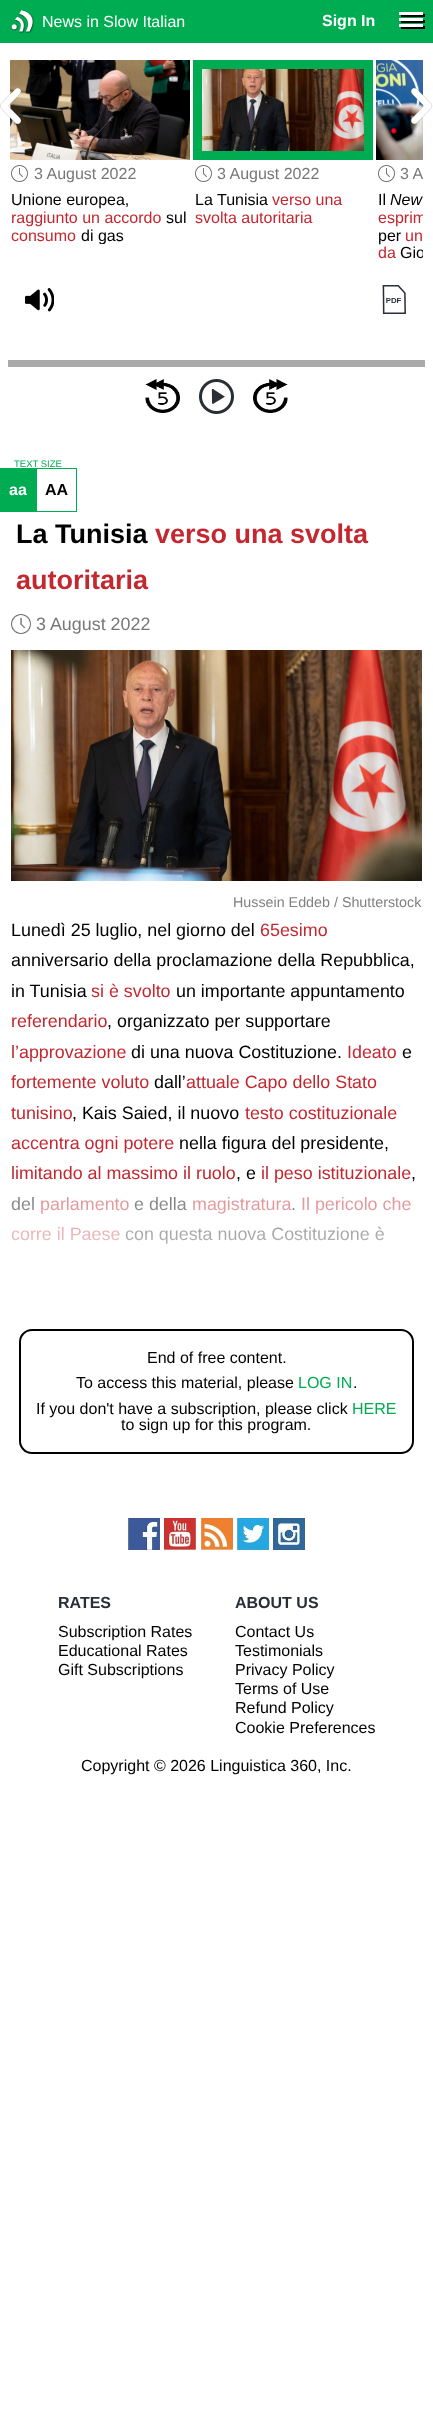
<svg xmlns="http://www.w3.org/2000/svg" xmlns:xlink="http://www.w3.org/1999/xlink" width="433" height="2424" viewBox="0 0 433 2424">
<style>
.cls-1{font:16px Liberation Sans;fill:#ffffff}
.cls-2{font:bold 16px Liberation Sans;fill:#ffffff}
.cls-3{font:16px Liberation Sans;fill:#777777}
.cls-4{font:16px Liberation Sans;fill:#000000}
.cls-5{font:16px Liberation Sans;fill:#c3272f}
.cls-6{font:italic 16px Liberation Sans;fill:#000000}
.cls-7{font:9.5px Liberation Sans;fill:#00ac52}
.cls-8{font:bold 16px Liberation Sans;fill:#000000}
.cls-9{font:bold 27px Liberation Sans;fill:#000000}
.cls-10{font:bold 27px Liberation Sans;fill:#c3272f}
.cls-11{font:17.9px Liberation Sans;fill:#777777}
.cls-12{font:14.3px Liberation Sans;fill:#808080}
.cls-13{font:17.9px Liberation Sans;fill:#000000}
.cls-14{font:17.9px Liberation Sans;fill:#c3272f}
.cls-15{font:16px Liberation Sans;fill:#00ac52}
.cls-16{font:bold 16px Liberation Sans;fill:#292e37}
</style>
<defs>
<clipPath id="clip1"><rect x="11" y="191" width="179" height="53"/></clipPath>
<clipPath id="clip2"><rect x="378" y="191" width="45" height="71"/></clipPath>
<linearGradient id="g1" gradientUnits="userSpaceOnUse" x1="217" y1="1185" x2="217" y2="1311"><stop offset="0" stop-color="#ffffff" stop-opacity="0"/><stop offset="0.1" stop-color="#ffffff" stop-opacity="0.5"/><stop offset="1" stop-color="#ffffff"/></linearGradient>
</defs>
<rect width="100%" height="100%" fill="#ffffff"/>
<rect fill="#00ac52" x="0" y="0" width="433" height="43"/>
<image xlink:href="image0.png" x="11" y="10" width="23" height="24"/>
<path fill="#000000" d="M401 15V17H425V14H423V15Z"/>
<rect fill="#ffffff" x="399" y="12" width="24" height="3"/>
<path fill="#000000" d="M401 21V23H425V20H423V21Z"/>
<rect fill="#ffffff" x="399" y="18" width="24" height="3"/>
<path fill="#000000" d="M401 27V29H425V26H423V27Z"/>
<rect fill="#ffffff" x="399" y="24" width="24" height="3"/>
<image xlink:href="image3.png" x="10" y="60" width="180" height="100"/>
<image xlink:href="image1.png" x="0" y="88" width="21" height="36"/>
<image xlink:href="image6.png" x="376" y="60" width="47" height="100"/>
<image xlink:href="image2.png" x="411" y="88" width="22" height="36"/>
<image xlink:href="image4.png" x="11" y="165" width="17" height="17"/>
<image xlink:href="image5.png" x="202" y="69" width="162" height="82"/>
<rect fill="none" stroke="#00ac52" stroke-width="9" x="197.5" y="64.5" width="171" height="91"/>
<image xlink:href="image4.png" x="195" y="165" width="17" height="17"/>
<image xlink:href="image7.png" x="378" y="165" width="17" height="17"/>
<image xlink:href="image8.png" x="25" y="288" width="29" height="24"/>
<image xlink:href="image9.png" x="382" y="285" width="24" height="29"/>
<rect fill="#aaaaaa" x="8" y="360" width="417" height="7"/>
<image xlink:href="image10.png" x="145" y="379" width="35" height="34"/>
<image xlink:href="image11.png" x="199" y="379" width="35" height="35"/>
<image xlink:href="image12.png" x="253" y="379" width="35" height="34"/>
<rect fill="#00ac52" x="0" y="468" width="36" height="44"/>
<rect fill="none" stroke="#00ac52" x="36.5" y="468.5" width="40" height="43"/>
<image xlink:href="image13.png" x="11" y="614" width="20" height="20"/>
<image xlink:href="image14.png" x="11" y="650" width="411" height="231"/>
<rect fill="none" stroke="#000000" stroke-width="2" x="20" y="1330" width="393" height="123" rx="12"/>
<image xlink:href="image15.png" x="128" y="1518" width="32" height="32"/>
<image xlink:href="image16.png" x="164" y="1518" width="32" height="32"/>
<image xlink:href="image17.png" x="201" y="1518" width="32" height="32"/>
<image xlink:href="image18.png" x="237" y="1518" width="32" height="32"/>
<image xlink:href="image19.png" x="273" y="1518" width="32" height="32"/>
<text class="cls-1" x="42" y="27">News in Slow Italian</text>
<text class="cls-2" x="322" y="26">Sign In</text>
<text class="cls-3" x="34" y="179">3 August 2022</text>
<text class="cls-4" x="11" y="205">Unione europea,</text>
<text class="cls-5" x="11" y="223">raggiunto un accordo</text>
<text class="cls-4" x="166" y="223">sul</text>
<text class="cls-5" x="11" y="241">consumo</text>
<g clip-path="url(#clip1)">
<text class="cls-4" x="81" y="241">di gas</text>
</g>
<text class="cls-3" x="217" y="179">3 August 2022</text>
<text class="cls-4" x="195" y="205">La Tunisia</text>
<text class="cls-5" x="272" y="205">verso una</text>
<text class="cls-5" x="195" y="223">svolta autoritaria</text>
<text class="cls-3" x="400" y="179">3 A</text>
<text class="cls-4" x="378" y="205">Il</text>
<text class="cls-6" x="390" y="205">New</text>
<g clip-path="url(#clip2)">
<text class="cls-5" x="378" y="223">esprim</text>
</g>
<text class="cls-4" x="378" y="241">per</text>
<text class="cls-5" x="405" y="241">un</text>
<text class="cls-5" x="378" y="258">da</text>
<g clip-path="url(#clip2)">
<text class="cls-4" x="400" y="258">Gio</text>
</g>
<text class="cls-7" x="14" y="467">TEXT SIZE</text>
<text class="cls-2" x="9" y="495">aa</text>
<text class="cls-8" x="45" y="495">AA</text>
<text class="cls-9" x="16" y="543">La Tunisia</text>
<text class="cls-10" x="155" y="543">verso una svolta</text>
<text class="cls-10" x="16" y="589">autoritaria</text>
<text class="cls-11" x="36" y="630">3 August 2022</text>
<text class="cls-12" x="233" y="907">Hussein Eddeb / Shutterstock</text>
<text class="cls-13" x="11" y="936">Lunedì 25 luglio, nel giorno del</text>
<text class="cls-14" x="260" y="936">65esimo</text>
<text class="cls-13"><tspan x="11" y="966">anniversario della proclamazione della Repubblica,</tspan><tspan x="11" y="997">in Tunisia</tspan></text>
<text class="cls-14" x="91" y="997">si è svolto</text>
<text class="cls-13" x="176" y="997">un importante appuntamento</text>
<text class="cls-14" x="11" y="1027">referendario</text>
<text class="cls-13" x="107" y="1027">, organizzato per supportare</text>
<text class="cls-14" x="11" y="1058">l’approvazione</text>
<text class="cls-13" x="131" y="1058">di una nuova Costituzione.</text>
<text class="cls-14" x="347" y="1058">Ideato</text>
<text class="cls-13" x="402" y="1058">e</text>
<text class="cls-14" x="11" y="1088">fortemente voluto</text>
<text class="cls-13" x="154" y="1088">dall’</text>
<text class="cls-14" x="186" y="1088">attuale Capo dello Stato</text>
<text class="cls-14" x="11" y="1119">tunisino</text>
<text class="cls-13" x="72" y="1119">, Kais Saied, il nuovo</text>
<text class="cls-14" x="245" y="1119">testo costituzionale</text>
<text class="cls-14" x="11" y="1149">accentra ogni potere</text>
<text class="cls-13" x="179" y="1149">nella figura del presidente,</text>
<text class="cls-14" x="11" y="1179">limitando al massimo il ruolo</text>
<text class="cls-13" x="236" y="1179">, e</text>
<text class="cls-14" x="261" y="1179">il peso istituzionale</text>
<text class="cls-13" x="411" y="1179">,</text>
<text class="cls-13" x="11" y="1210">del</text>
<text class="cls-14" x="40" y="1210">parlamento</text>
<text class="cls-13" x="134" y="1210">e della</text>
<text class="cls-14" x="192" y="1210">magistratura</text>
<text class="cls-13" x="291" y="1210">.</text>
<text class="cls-14" x="301" y="1210">Il pericolo che</text>
<text class="cls-14" x="11" y="1240">corre il Paese</text>
<text class="cls-13" x="125" y="1240">con questa nuova Costituzione è</text>
<rect fill="url(#g1)" x="11" y="1197" width="401" height="47"/>
<text class="cls-4" x="147" y="1363">End of free content.</text>
<text class="cls-4" x="76" y="1388">To access this material, please</text>
<text class="cls-15" x="298" y="1388">LOG IN</text>
<text class="cls-4" x="353" y="1388">.</text>
<text class="cls-4" x="36" y="1414">If you don't have a subscription, please click</text>
<text class="cls-15" x="352" y="1414">HERE</text>
<text class="cls-4" x="121" y="1430">to sign up for this program.</text>
<text class="cls-16" x="58" y="1608">RATES</text>
<text class="cls-4"><tspan x="58" y="1637">Subscription Rates</tspan><tspan x="58" y="1656">Educational Rates</tspan><tspan x="58" y="1675">Gift Subscriptions</tspan></text>
<text class="cls-16" x="235" y="1608">ABOUT US</text>
<text class="cls-4"><tspan x="235" y="1637">Contact Us</tspan><tspan x="235" y="1656">Testimonials</tspan><tspan x="235" y="1675">Privacy Policy</tspan><tspan x="235" y="1694">Terms of Use</tspan><tspan x="235" y="1713">Refund Policy</tspan><tspan x="235" y="1733">Cookie Preferences</tspan></text>
<text class="cls-4" x="81" y="1771">Copyright © 2026 Linguistica 360, Inc.</text>
</svg>
